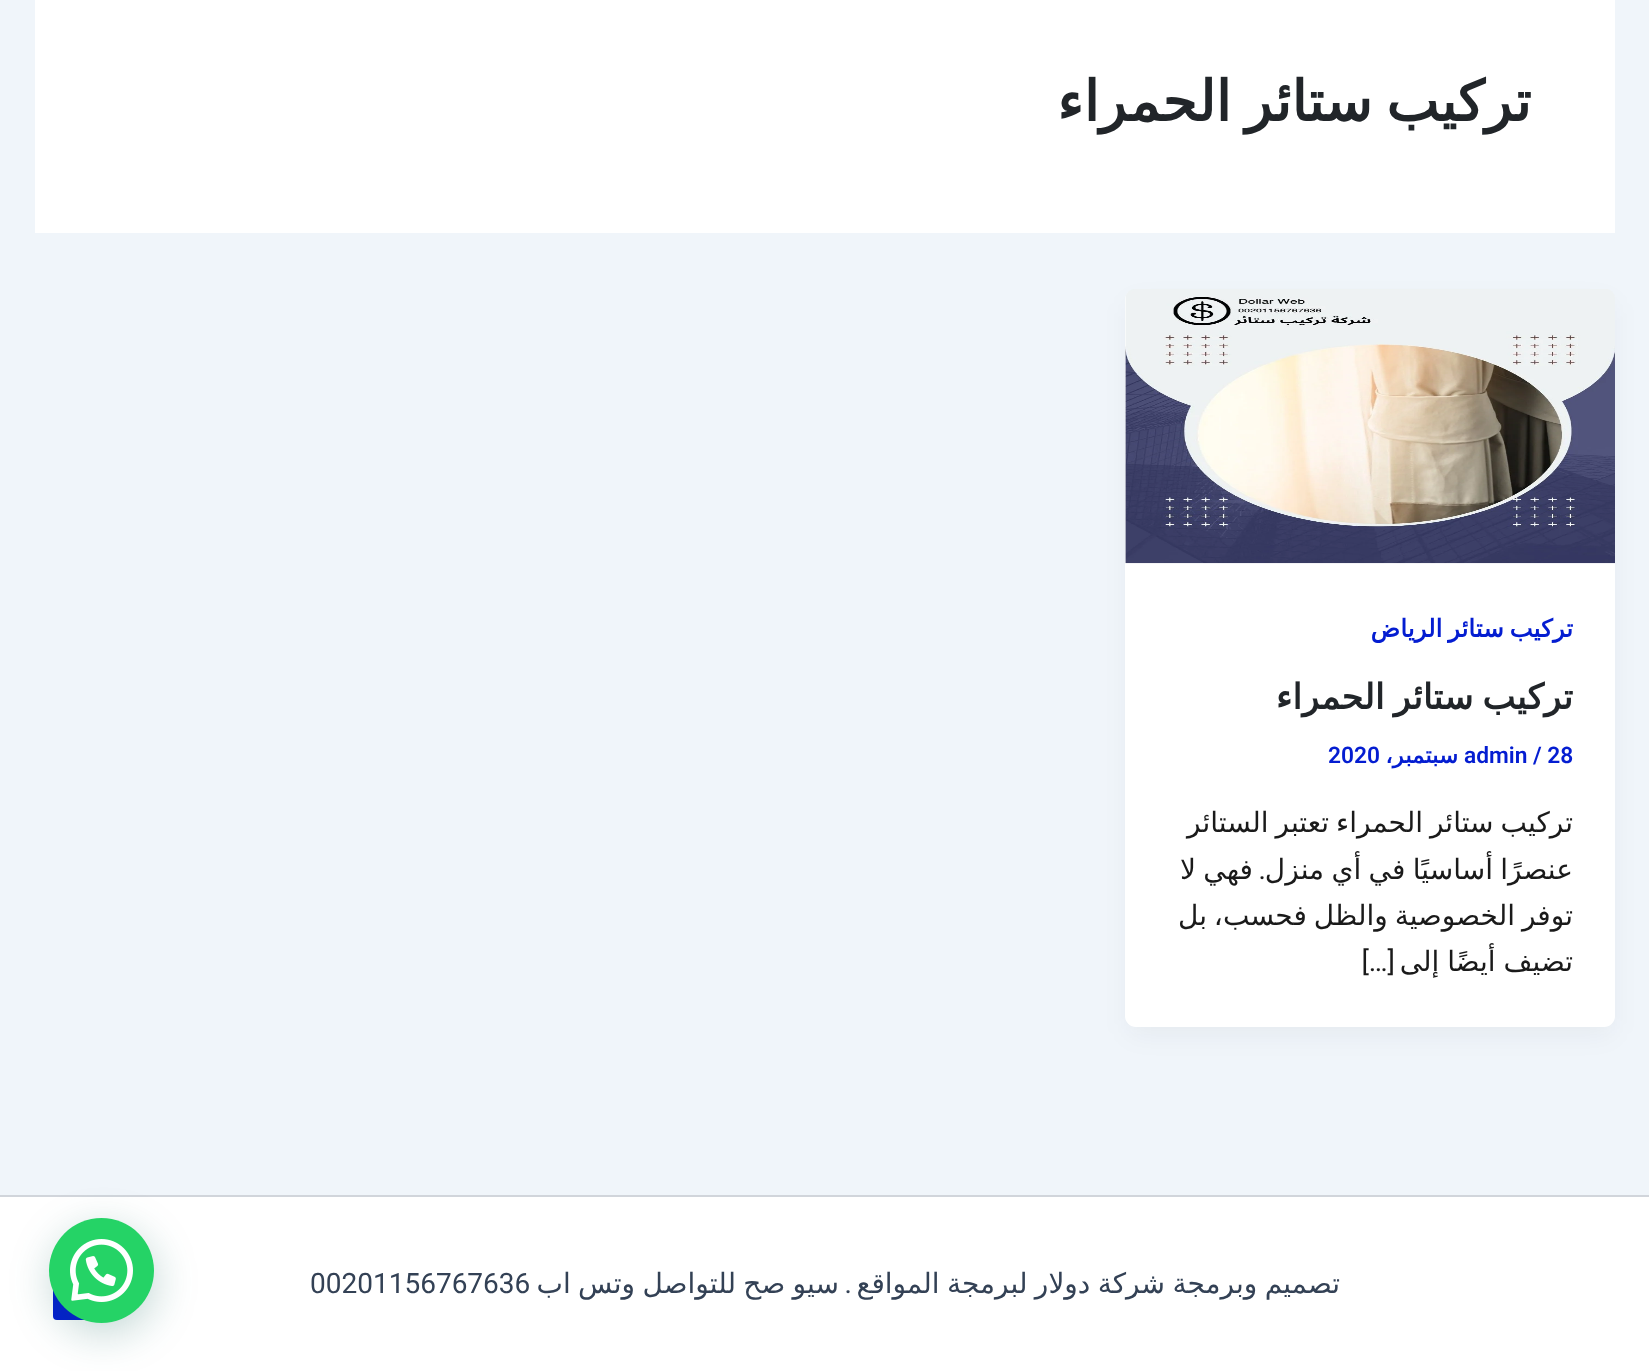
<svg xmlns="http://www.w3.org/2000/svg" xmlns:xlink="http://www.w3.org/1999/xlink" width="1649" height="1371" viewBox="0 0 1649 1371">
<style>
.cls-1{font:bold 56px DejaVu Sans;direction:rtl;fill:#212529}
.cls-2{font:bold 24.5px DejaVu Sans;direction:rtl;fill:#041dd1}
.cls-3{font:bold 35px DejaVu Sans;direction:rtl;fill:#212529}
.cls-4{font:600 22.75px Roboto;fill:#041dd1}
.cls-5{font:bold 22.75px DejaVu Sans;direction:rtl;fill:#041dd1}
.cls-6{font:28px DejaVu Sans;direction:rtl;fill:#1a1a1a}
.cls-7{font:28px Roboto;direction:rtl;fill:#1a1a1a}
.cls-8{font:28px DejaVu Sans;direction:rtl;fill:#334155}
.cls-9{font:28px Roboto;direction:rtl;fill:#334155}
.cls-10{font:28px Roboto;fill:#334155}
</style>
<rect width="100%" height="100%" fill="#f0f5fa"/>
<rect fill="#ffffff" x="35" y="0" width="1580" height="233"/>
<rect fill="#101828" fill-opacity="0.05" filter="blur(13px)" x="1129" y="303" width="483" height="731" rx="7"/>
<rect fill="#ffffff" x="1125" y="289" width="490" height="738" rx="11"/>
<image xlink:href="image0.png" x="1125" y="289" width="490" height="275"/>
<rect fill="#ffffff" x="0" y="1197" width="1649" height="174"/>
<rect fill="#d1d5db" x="0" y="1195" width="1649" height="2"/>
<rect fill="#041dd1" x="53" y="1265" width="56" height="55" rx="4"/>
<rect fill="#075e54" fill-opacity="0.24" filter="blur(21px)" x="51" y="1229" width="105" height="105" rx="52.5"/>
<circle fill="#25d366" cx="101.5" cy="1270.5" r="52.5"/>
<image xlink:href="image1.png" x="70" y="1239" width="63" height="63"/>
<text class="cls-1" x="1531" y="121" word-spacing="-4">تركيب ستائر الحمراء</text>
<text class="cls-2" x="1573" y="637" word-spacing="-2">تركيب ستائر الرياض</text>
<text class="cls-3" x="1573" y="709" word-spacing="-2">تركيب ستائر الحمراء</text>
<text class="cls-4" x="1464" y="763">admin / 28</text>
<text class="cls-5" x="1458" y="763">سبتمبر،</text>
<text class="cls-4" x="1328" y="763">2020</text>
<text class="cls-6"><tspan x="1573" y="832" word-spacing="-2">تركيب ستائر الحمراء تعتبر الستائر</tspan><tspan x="1573" y="879" word-spacing="-1.5">عنصرًا أساسيًا في أي منزل</tspan></text>
<text class="cls-7" x="1266" y="879">.</text>
<text class="cls-6" x="1253" y="879" word-spacing="-1.5">فهي لا</text>
<text class="cls-6"><tspan x="1573" y="925" word-spacing="-2">توفر الخصوصية والظل فحسب، بل</tspan><tspan x="1573" y="971" word-spacing="-1">تضيف أيضًا إلى</tspan></text>
<text class="cls-7" x="1395" y="971">[…]</text>
<text class="cls-8" x="1340" y="1293" word-spacing="-1.5">تصميم وبرمجة شركة دولار لبرمجة المواقع</text>
<text class="cls-9" x="852" y="1293">.</text>
<text class="cls-8" x="839" y="1293" word-spacing="-1.5">سيو صح للتواصل وتس اب</text>
<text class="cls-10" x="310" y="1293">00201156767636</text>
</svg>
